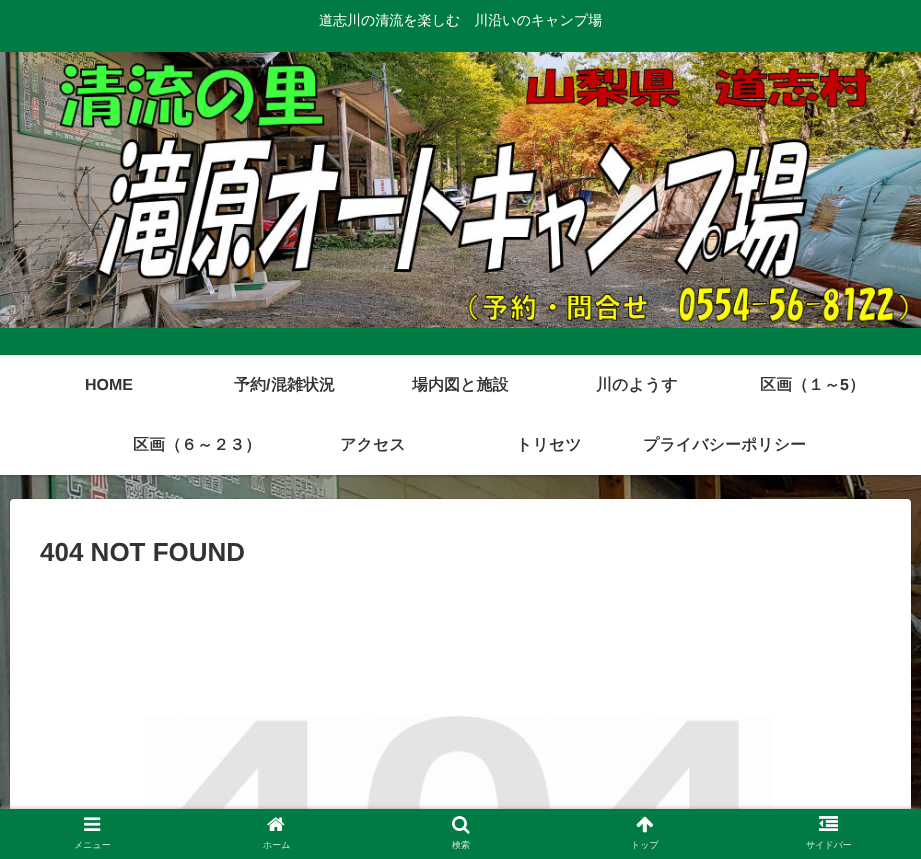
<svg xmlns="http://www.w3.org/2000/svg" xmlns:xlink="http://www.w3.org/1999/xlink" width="921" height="859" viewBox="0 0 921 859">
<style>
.cls-1{font:500 14px WenQuanYi Zen Hei;fill:#ffffff}
.cls-2{font:bold 16px Liberation Sans;fill:#333333}
.cls-3{font:bold 16px WenQuanYi Zen Hei;fill:#333333}
.cls-4{font:bold 26px Liberation Sans;fill:#333333}
.cls-5{font:500 9px WenQuanYi Zen Hei;fill:#cce5d9}
</style>
<defs>
<clipPath id="clip1"><path d="M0 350H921V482H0ZM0 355H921V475H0Z" clip-rule="evenodd"/></clipPath>
</defs>
<rect width="100%" height="100%" fill="#ffffff"/>
<image xlink:href="image0.png" x="0" y="475" width="921" height="334"/>
<rect fill="#007b43" x="0" y="0" width="921" height="355"/>
<image xlink:href="image1.png" x="0" y="52" width="921" height="276"/>
<g clip-path="url(#clip1)">
<rect fill="#000000" fill-opacity="0.25" filter="blur(1.5px)" x="0" y="356" width="921" height="120"/>
</g>
<rect fill="none" stroke="#000000" stroke-opacity="0.08" x="9.5" y="498.5" width="902" height="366" rx="4.5"/>
<rect fill="#000000" fill-opacity="0.16" filter="blur(1px)" x="10" y="501" width="901" height="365" rx="4"/>
<rect fill="#ffffff" x="10" y="499" width="901" height="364" rx="4"/>
<image xlink:href="image2.png" x="144" y="715" width="629" height="94"/>
<rect fill="#a9a9a9" filter="blur(2.5px)" x="0" y="809" width="921" height="50"/>
<rect fill="#007b43" x="0" y="809" width="921" height="50"/>
<image xlink:href="image3.png" x="84" y="817" width="17" height="14"/>
<image xlink:href="image4.png" x="267" y="817" width="18" height="14"/>
<image xlink:href="image5.png" x="452" y="816" width="18" height="18"/>
<image xlink:href="image6.png" x="636" y="816" width="17" height="17"/>
<image xlink:href="image7.png" x="819" y="816" width="19" height="15"/>
<text class="cls-1" x="319" y="25">道志川の清流を楽しむ　川沿いのキャンプ場</text>
<text class="cls-2" x="85" y="390">HOME</text>
<text class="cls-3" x="234" y="390">予約</text>
<text class="cls-2" x="266" y="390">/</text>
<text class="cls-3" x="271" y="390">混雑状況</text>
<text class="cls-3" x="412" y="390">場内図と施設</text>
<text class="cls-3" x="596" y="390">川のようす</text>
<text class="cls-3" x="760" y="390">区画（１～</text>
<text class="cls-2" x="840" y="390">5</text>
<text class="cls-3" x="849" y="390">）</text>
<text class="cls-3" x="133" y="450">区画（６～２３）</text>
<text class="cls-3" x="340" y="450">アクセス</text>
<text class="cls-3" x="516" y="450">トリセツ</text>
<text class="cls-3" x="643" y="450">プライバシーポリシー</text>
<text class="cls-4" x="40" y="561">404 NOT FOUND</text>
<text class="cls-5" x="74" y="848">メニュー</text>
<text class="cls-5" x="263" y="848">ホーム</text>
<text class="cls-5" x="452" y="848">検索</text>
<text class="cls-5" x="631" y="848">トップ</text>
<text class="cls-5" x="806" y="848">サイドバー</text>
</svg>
